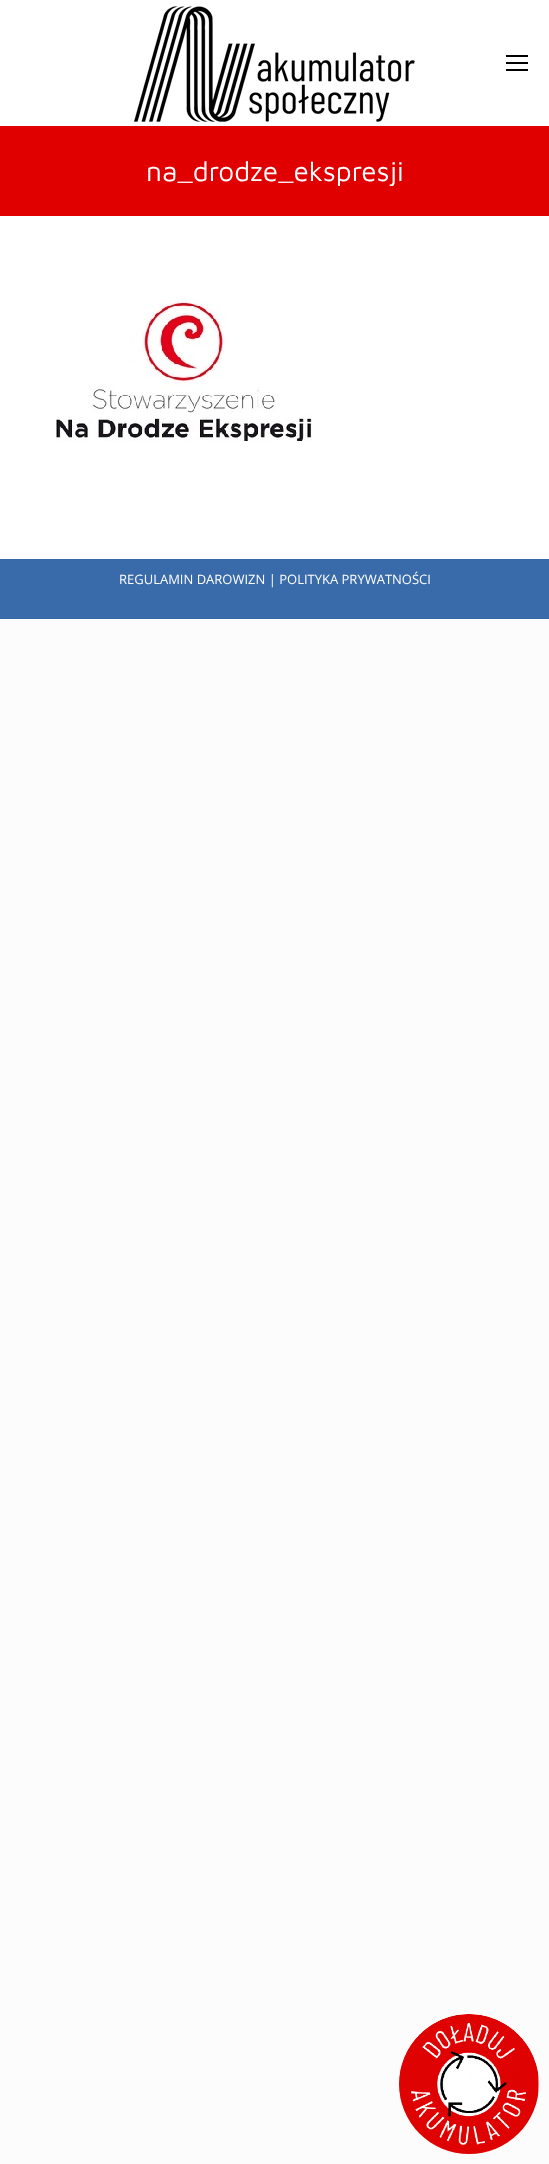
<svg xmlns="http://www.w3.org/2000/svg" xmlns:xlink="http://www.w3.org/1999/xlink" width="549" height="2164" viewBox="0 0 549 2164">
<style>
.cls-1{font:28px Maven Pro;fill:#ffffff}
.cls-2{font:13px Open Sans;fill:#ffffff}
</style>
<defs>
<clipPath id="clip1"><rect x="146" y="156" width="257" height="30"/></clipPath>
</defs>
<rect width="100%" height="100%" fill="#fcfcfc"/>
<rect fill="#ffffff" x="0" y="0" width="549" height="559"/>
<image xlink:href="image0.png" x="134" y="6" width="281" height="116"/>
<rect fill="#000000" x="506" y="55" width="22" height="2"/>
<rect fill="#000000" x="506" y="62" width="22" height="2"/>
<rect fill="#000000" x="506" y="69" width="22" height="2"/>
<rect fill="#e00000" x="0" y="126" width="549" height="90"/>
<image xlink:href="image1.png" x="56" y="298" width="256" height="144"/>
<rect fill="#396aa9" x="0" y="559" width="549" height="60"/>
<image xlink:href="image2.png" x="399" y="2014" width="140" height="140"/>
<g clip-path="url(#clip1)">
<text class="cls-1" x="146" y="181">na_drodze_ekspresji</text>
</g>
<text class="cls-2" x="119" y="584">REGULAMIN DAROWIZN | POLITYKA PRYWATNOŚCI</text>
</svg>
